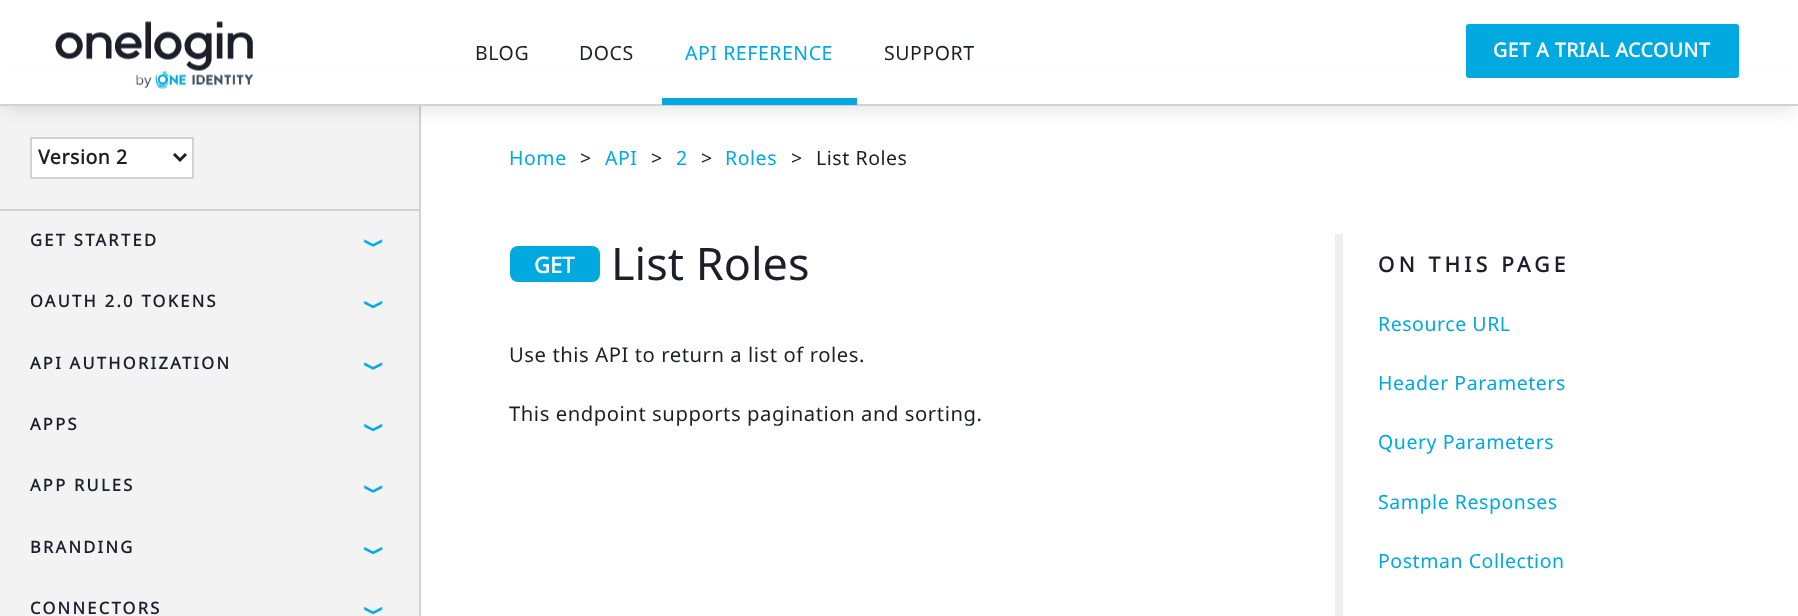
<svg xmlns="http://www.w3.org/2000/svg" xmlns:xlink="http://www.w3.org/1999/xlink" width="1798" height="616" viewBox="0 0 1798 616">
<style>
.cls-1{font:19.5px Noto Sans;letter-spacing:0.55px;fill:#1c1f2a}
.cls-2{font:19.5px Noto Sans;letter-spacing:0.55px;fill:#00a9e0}
.cls-3{font:bold 19.5px Noto Sans;letter-spacing:0.55px;fill:#ffffff}
.cls-4{font:bold 19.5px Noto Sans;letter-spacing:0.55px;fill:#1c1f2a}
.cls-5{font:bold 16.5px Noto Sans;letter-spacing:2.3px;fill:#1c1f2a}
.cls-6{font:bold 22px Noto Sans;fill:#ffffff}
.cls-7{font:45px Noto Sans;fill:#1c1f2a}
.cls-8{font:bold 21px Noto Sans;letter-spacing:4.25px;fill:#1c1f2a}
.cls-9{font:20.25px Noto Sans;letter-spacing:0.55px;fill:#1c1f2a}
</style>
<rect width="100%" height="100%" fill="#ffffff"/>
<rect fill="#f3f3f4" x="0" y="106" width="419" height="510"/>
<rect fill="#d1d2d4" x="419" y="106" width="2" height="510"/>
<rect fill="#1c1f2a" fill-opacity="0.09" filter="blur(7.5px)" x="0" y="77" width="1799" height="36" rx="18"/>
<rect fill="#ffffff" x="0" y="68" width="1798" height="36"/>
<image xlink:href="image0.png" x="55" y="21" width="198" height="68"/>
<rect fill="#d1d2d4" x="0" y="104" width="1798" height="2"/>
<rect fill="#00a9e0" x="662" y="98" width="195" height="7"/>
<rect fill="#00a9e0" x="1466" y="24" width="273" height="54" rx="3"/>
<rect fill="#d1d2d4" x="0" y="209" width="419" height="2"/>
<rect fill="#ffffff" stroke="#d1d2d4" stroke-width="2" x="31" y="138" width="162" height="40"/>
<path fill="none" stroke="#1c1f2a" stroke-width="3" d="M174 154L180 160L186 154"/>
<image xlink:href="image1.png" x="363" y="239" width="20" height="8"/>
<image xlink:href="image2.png" x="363" y="300" width="20" height="9"/>
<image xlink:href="image1.png" x="363" y="362" width="20" height="8"/>
<image xlink:href="image2.png" x="363" y="423" width="20" height="9"/>
<image xlink:href="image1.png" x="363" y="485" width="20" height="8"/>
<image xlink:href="image2.png" x="363" y="546" width="20" height="9"/>
<image xlink:href="image2.png" x="363" y="606" width="20" height="9"/>
<rect fill="#00a9e0" x="510" y="246" width="90" height="36" rx="8"/>
<rect fill="#eeeeee" x="1335" y="234" width="8" height="382"/>
<text class="cls-1" x="475" y="60">BLOG</text>
<text class="cls-1" x="579" y="60">DOCS</text>
<text class="cls-2" x="685" y="60">API REFERENCE</text>
<text class="cls-1" x="884" y="60">SUPPORT</text>
<text class="cls-3" x="1493" y="57">GET A TRIAL ACCOUNT</text>
<text class="cls-4" x="38" y="164">Version 2</text>
<text class="cls-5" x="30" y="246">GET STARTED</text>
<text class="cls-5" x="30" y="307">OAUTH 2.0 TOKENS</text>
<text class="cls-5" x="30" y="369">API AUTHORIZATION</text>
<text class="cls-5" x="30" y="430">APPS</text>
<text class="cls-5" x="30" y="491">APP RULES</text>
<text class="cls-5" x="30" y="553">BRANDING</text>
<text class="cls-5" x="30" y="614">CONNECTORS</text>
<text class="cls-2" x="509" y="165">Home</text>
<text class="cls-1" x="580" y="165">&gt;</text>
<text class="cls-2" x="605" y="165">API</text>
<text class="cls-1" x="651" y="165">&gt;</text>
<text class="cls-2" x="676" y="165">2</text>
<text class="cls-1" x="701" y="165">&gt;</text>
<text class="cls-2" x="725" y="165">Roles</text>
<text class="cls-1" x="791" y="165">&gt;</text>
<text class="cls-1" x="816" y="165">List Roles</text>
<text class="cls-6" x="534" y="273">GET</text>
<text class="cls-7" x="611" y="280">List Roles</text>
<text class="cls-8" x="1378" y="272">ON THIS PAGE</text>
<text class="cls-2" x="1378" y="331">Resource URL</text>
<text class="cls-2" x="1378" y="390">Header Parameters</text>
<text class="cls-2" x="1378" y="449">Query Parameters</text>
<text class="cls-2" x="1378" y="509">Sample Responses</text>
<text class="cls-2" x="1378" y="568">Postman Collection</text>
<text class="cls-9" x="509" y="362">Use this API to return a list of roles.</text>
<text class="cls-9" x="509" y="421">This endpoint supports pagination and sorting.</text>
</svg>
